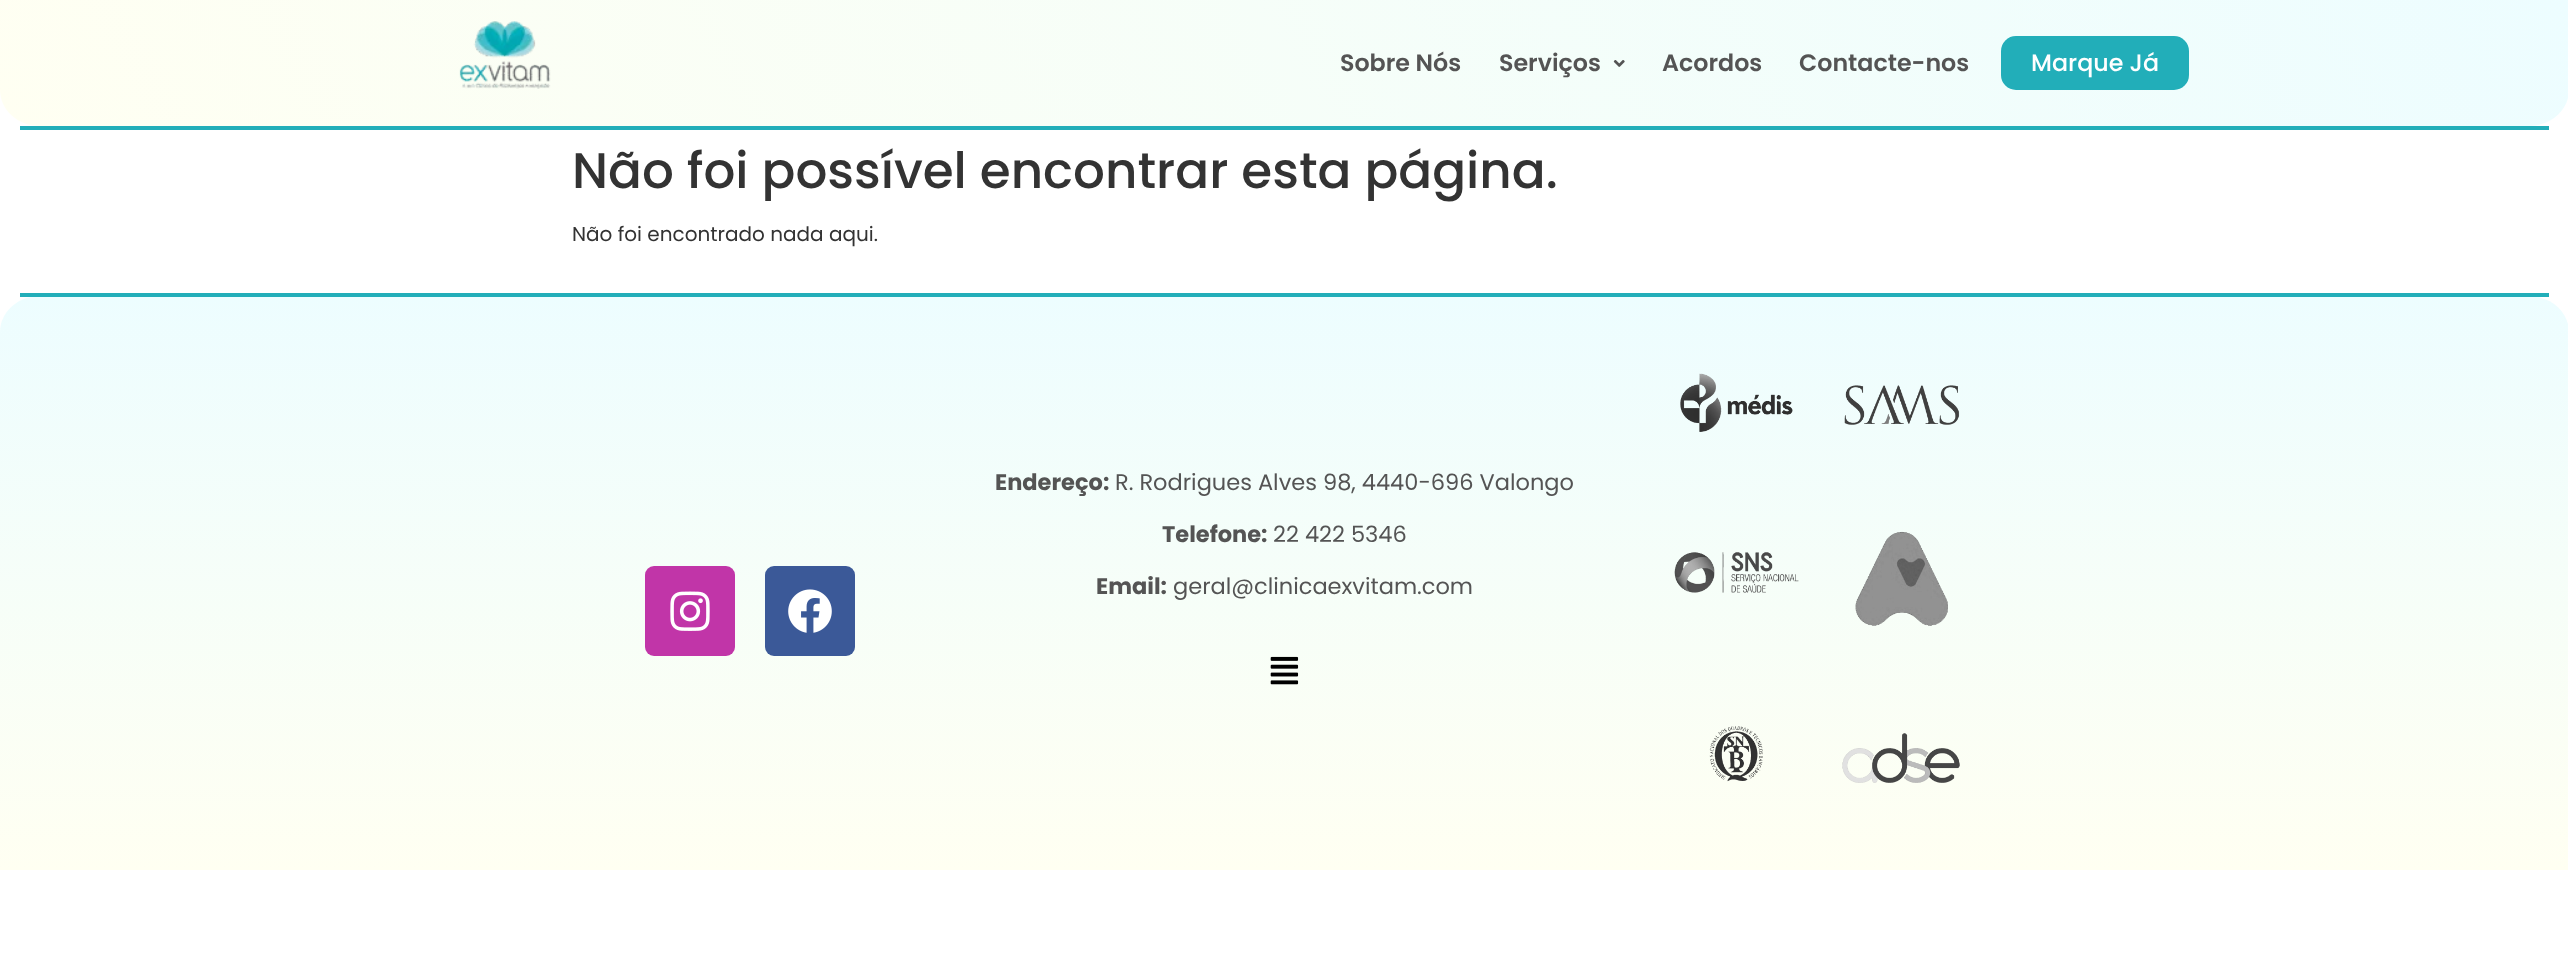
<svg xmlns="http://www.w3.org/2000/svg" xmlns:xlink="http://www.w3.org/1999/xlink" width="2568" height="968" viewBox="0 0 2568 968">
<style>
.cls-1{font:600 23.75px Poppins;fill:#545454}
.cls-2{font:500 23.75px Poppins;fill:#ffffff}
.cls-3{font:500 50px Poppins;fill:#333333}
.cls-4{font:20px Poppins;fill:#333333}
.cls-5{font:bold 22.5px Poppins;fill:#545454}
.cls-6{font:22.5px Poppins;fill:#545454}
</style>
<defs>
<linearGradient id="g1" gradientUnits="userSpaceOnUse" x1="2294" y1="-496" x2="275" y2="623"><stop offset="0" stop-color="#edfdff"/><stop offset="1" stop-color="#fffff2"/></linearGradient>
<linearGradient id="g2" gradientUnits="userSpaceOnUse" x1="1284" y1="296" x2="1284" y2="870"><stop offset="0" stop-color="#edfdff"/><stop offset="1" stop-color="#fffff2"/></linearGradient>
</defs>
<rect width="100%" height="100%" fill="#ffffff"/>
<path fill="url(#g1)" d="M0 0H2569V90C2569 110 2551 126 2529 126H40C18 126 0 110 0 90Z"/>
<rect fill="#22aeb9" x="20" y="126" width="2529" height="4"/>
<image xlink:href="image0.png" x="459" y="21" width="92" height="68"/>
<image xlink:href="image1.png" x="1613" y="60" width="12" height="7"/>
<rect fill="#22aeb9" x="2001" y="36" width="188" height="54" rx="15"/>
<path fill="url(#g2)" d="M40 296H2529C2551 296 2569 312 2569 332V870H0V332C0 312 18 296 40 296Z"/>
<rect fill="#22aeb9" x="20" y="293" width="2529" height="4"/>
<image xlink:href="image2.png" x="1270" y="656" width="29" height="29"/>
<image xlink:href="image3.png" x="1680" y="373" width="113" height="59"/>
<image xlink:href="image4.png" x="1844" y="385" width="116" height="40"/>
<image xlink:href="image5.png" x="1674" y="552" width="125" height="41"/>
<image xlink:href="image6.png" x="1855" y="531" width="93" height="95"/>
<image xlink:href="image7.png" x="1709" y="726" width="54" height="56"/>
<image xlink:href="image8.png" x="1842" y="733" width="118" height="50"/>
<rect fill="#c135a8" x="645" y="566" width="90" height="90" rx="9"/>
<image xlink:href="image9.png" x="670" y="591" width="40" height="40"/>
<rect fill="#3b5998" x="765" y="566" width="90" height="90" rx="9"/>
<image xlink:href="image10.png" x="788" y="589" width="44" height="44"/>
<text class="cls-1" x="1340" y="71">Sobre Nós</text>
<text class="cls-1" x="1499" y="71">Serviços</text>
<text class="cls-1" x="1662" y="71">Acordos</text>
<text class="cls-1" x="1799" y="71">Contacte-nos</text>
<text class="cls-2" x="2031" y="71">Marque Já</text>
<text class="cls-3" x="572" y="188">Não foi possível encontrar esta página.</text>
<text class="cls-4" x="572" y="241">Não foi encontrado nada aqui.</text>
<text class="cls-5" x="995" y="490">Endereço:</text>
<text class="cls-6" x="1115" y="490">R. Rodrigues Alves 98, 4440-696 Valongo</text>
<text class="cls-5" x="1162" y="542">Telefone:</text>
<text class="cls-6" x="1273" y="542">22 422 5346</text>
<text class="cls-5" x="1096" y="594">Email:</text>
<text class="cls-6" x="1173" y="594">geral@clinicaexvitam.com</text>
</svg>
